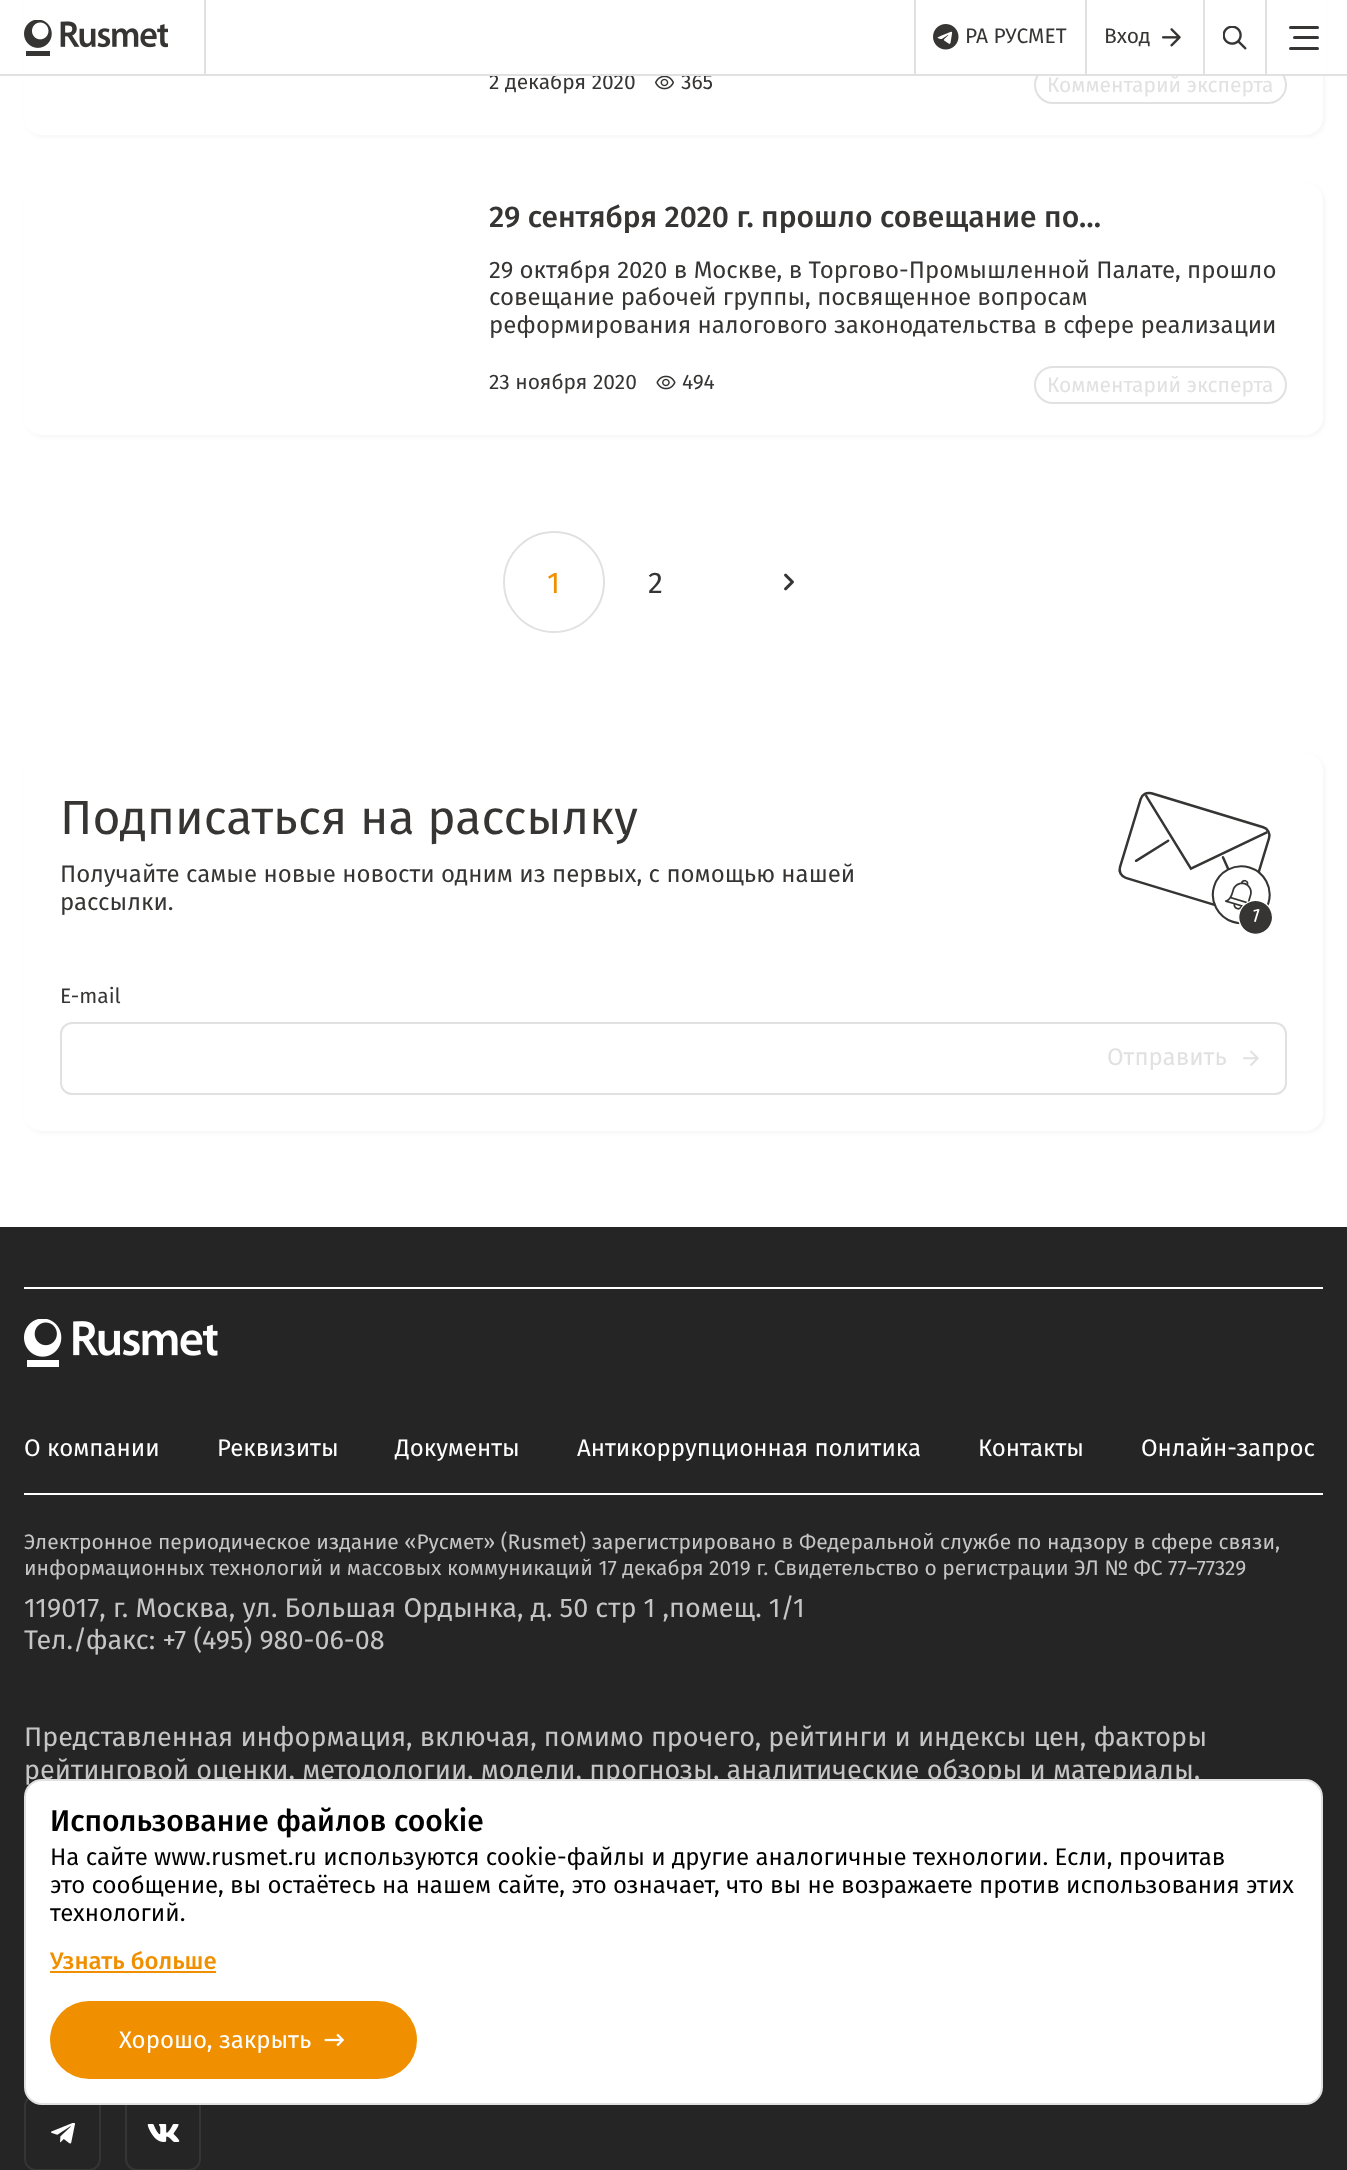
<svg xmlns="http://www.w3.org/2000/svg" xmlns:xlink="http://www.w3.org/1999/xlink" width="1347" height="2170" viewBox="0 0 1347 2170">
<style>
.cls-1{font:21px Fira Sans;fill:#363534}
.cls-2{font:21px Fira Sans;fill:#e1e1e1}
.cls-3{font:500 30px Fira Sans;fill:#363534}
.cls-4{font:24px Fira Sans;fill:#363534}
.cls-5{font:30px Fira Sans;fill:#f09000}
.cls-6{font:30px Fira Sans;fill:#363534}
.cls-7{font:48px Fira Sans;fill:#363534}
.cls-8{font:24px Fira Sans;fill:#e1e1e1}
.cls-9{font:24px Fira Sans;fill:#ffffff}
.cls-10{font:21px Fira Sans;fill:#c5c5c5}
.cls-11{font:27px Fira Sans;fill:#c5c5c5}
.cls-12{font:500 30px Fira Sans;fill:#000000}
.cls-13{font:24px Fira Sans;fill:#000000}
.cls-14{font:500 24px Fira Sans;fill:#f09000}
</style>
<defs>
<clipPath id="clip1"><rect x="489" y="201" width="798" height="32"/></clipPath>
</defs>
<rect width="100%" height="100%" fill="#ffffff"/>
<rect fill="#000000" fill-opacity="0.04" filter="blur(2px)" x="26" y="-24" width="1299" height="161" rx="18"/>
<rect fill="#ffffff" x="24" y="-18" width="1299" height="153" rx="18"/>
<image xlink:href="image0.png" x="24" y="20" width="144" height="36"/>
<rect fill="#e1e1e1" x="204" y="0" width="2" height="74"/>
<image xlink:href="image4.png" x="655" y="76" width="19" height="14"/>
<rect fill="none" stroke="#e1e1e1" stroke-width="2" x="1035" y="67" width="251" height="36" rx="18"/>
<rect fill="#000000" fill-opacity="0.04" filter="blur(2px)" x="26" y="185" width="1299" height="252" rx="18"/>
<rect fill="#ffffff" x="24" y="183" width="1299" height="252" rx="18"/>
<image xlink:href="image5.png" x="656" y="375" width="20" height="15"/>
<rect fill="none" stroke="#e1e1e1" stroke-width="2" x="1035" y="367" width="251" height="36" rx="18"/>
<circle fill="none" stroke="#e1e1e1" stroke-width="2" cx="554" cy="582" r="50"/>
<image xlink:href="image6.png" x="784" y="573" width="10" height="18"/>
<rect fill="#000000" fill-opacity="0.04" filter="blur(2px)" x="26" y="755" width="1299" height="378" rx="18"/>
<rect fill="#ffffff" x="24" y="753" width="1299" height="378" rx="18"/>
<image xlink:href="image7.png" x="1118" y="791" width="155" height="144"/>
<rect fill="none" stroke="#e1e1e1" stroke-width="2" x="61" y="1023" width="1225" height="71" rx="11"/>
<image xlink:href="image8.png" x="1243" y="1050" width="16" height="16"/>
<rect fill="#252525" x="0" y="1227" width="1347" height="943"/>
<rect fill="#ffffff" x="24" y="1287" width="1299" height="2"/>
<rect fill="#ffffff" x="24" y="1493" width="1299" height="2"/>
<image xlink:href="image9.png" x="24" y="1319" width="194" height="48"/>
<rect fill="none" stroke="#363534" stroke-width="2" x="25" y="2095" width="75" height="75" rx="11"/>
<image xlink:href="image10.png" x="51" y="2123" width="24" height="21"/>
<rect fill="none" stroke="#363534" stroke-width="2" x="126" y="2095" width="74" height="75" rx="11"/>
<image xlink:href="image11.png" x="147" y="2124" width="33" height="18"/>
<text class="cls-1" x="489" y="89">2 декабря 2020</text>
<rect fill="#ffffff" x="557" y="0" width="769" height="74"/>
<rect fill="#363534" x="1289" y="47" width="30" height="3" rx="1.5"/>
<rect fill="#363534" x="1293" y="36" width="26" height="3" rx="1.5"/>
<rect fill="#363534" x="1289" y="26" width="30" height="3" rx="1.5"/>
<image xlink:href="image2.png" x="1162" y="28" width="19" height="19"/>
<image xlink:href="image3.png" x="1223" y="26" width="24" height="24"/>
<image xlink:href="image1.png" x="933" y="24" width="26" height="26"/>
<rect fill="#e1e1e1" x="1265" y="0" width="2" height="74"/>
<text class="cls-1" x="1104" y="43">Вход</text>
<rect fill="#e1e1e1" x="1085" y="0" width="2" height="74"/>
<rect fill="#e1e1e1" x="1203" y="0" width="2" height="74"/>
<text class="cls-1" x="965" y="43">РА РУСМЕТ</text>
<rect fill="#e1e1e1" x="914" y="0" width="2" height="74"/>
<text class="cls-1" x="681" y="89">365</text>
<rect fill="#e1e1e1" x="0" y="74" width="1347" height="2"/>
<text class="cls-2" x="1047" y="92">Комментарий эксперта</text>
<g clip-path="url(#clip1)">
<text class="cls-3" x="489" y="227">29 сентября 2020 г. прошло совещание по…</text>
</g>
<text class="cls-4"><tspan x="489" y="278">29 октября 2020 в Москве, в Торгово-Промышленной Палате, прошло</tspan><tspan x="489" y="305">совещание рабочей группы, посвященное вопросам</tspan><tspan x="489" y="333">реформирования налогового законодательства в сфере реализации</tspan></text>
<text class="cls-1" x="489" y="389">23 ноября 2020</text>
<text class="cls-1" x="682" y="389">494</text>
<text class="cls-2" x="1047" y="392">Комментарий эксперта</text>
<text class="cls-5" x="547" y="593">1</text>
<text class="cls-6" x="648" y="593">2</text>
<text class="cls-7" x="60" y="834">Подписаться на рассылку</text>
<text class="cls-4"><tspan x="60" y="882">Получайте самые новые новости одним из первых, с помощью нашей</tspan><tspan x="60" y="910">рассылки.</tspan></text>
<text class="cls-1" x="60" y="1003">E-mail</text>
<text class="cls-8" x="1107" y="1065">Отправить</text>
<text class="cls-9" x="24" y="1456">О компании</text>
<text class="cls-9" x="217" y="1456">Реквизиты</text>
<text class="cls-9" x="395" y="1456">Документы</text>
<text class="cls-9" x="577" y="1456">Антикоррупционная политика</text>
<text class="cls-9" x="978" y="1456">Контакты</text>
<text class="cls-9" x="1141" y="1456">Онлайн-запрос</text>
<text class="cls-10"><tspan x="24" y="1549">Электронное периодическое издание «Русмет» (Rusmet) зарегистрировано в Федеральной службе по надзору в сфере связи,</tspan><tspan x="24" y="1575">информационных технологий и массовых коммуникаций 17 декабря 2019 г. Свидетельство о регистрации ЭЛ № ФС 77–77329</tspan></text>
<text class="cls-11"><tspan x="24" y="1617">119017, г. Москва, ул. Большая Ордынка, д. 50 стр 1 ,помещ. 1/1</tspan><tspan x="24" y="1649">Тел./факс: +7 (495) 980-06-08</tspan></text>
<text class="cls-11"><tspan x="24" y="1746">Представленная информация, включая, помимо прочего, рейтинги и индексы цен, факторы</tspan><tspan x="24" y="1779">рейтинговой оценки, методологии, модели, прогнозы, аналитические обзоры и материалы,</tspan></text>
<rect fill="#ffffff" stroke="#e1e1e1" stroke-width="2" x="25" y="1780" width="1297" height="324" rx="17"/>
<text class="cls-12" x="50" y="1831">Использование файлов cookie</text>
<text class="cls-13"><tspan x="50" y="1865">На сайте www.rusmet.ru используются cookie-файлы и другие аналогичные технологии. Если, прочитав</tspan><tspan x="50" y="1893">это сообщение, вы остаётесь на нашем сайте, это означает, что вы не возражаете против использования этих</tspan><tspan x="50" y="1921">технологий.</tspan></text>
<text class="cls-14" x="50" y="1969">Узнать больше</text>
<rect fill="#f09000" x="50" y="1971" width="166" height="2"/>
<rect fill="#f09000" x="50" y="2001" width="367" height="78" rx="39"/>
<text class="cls-9" x="119" y="2048">Хорошо, закрыть</text>
<image xlink:href="image12.png" x="324" y="2033" width="21" height="14"/>
</svg>
